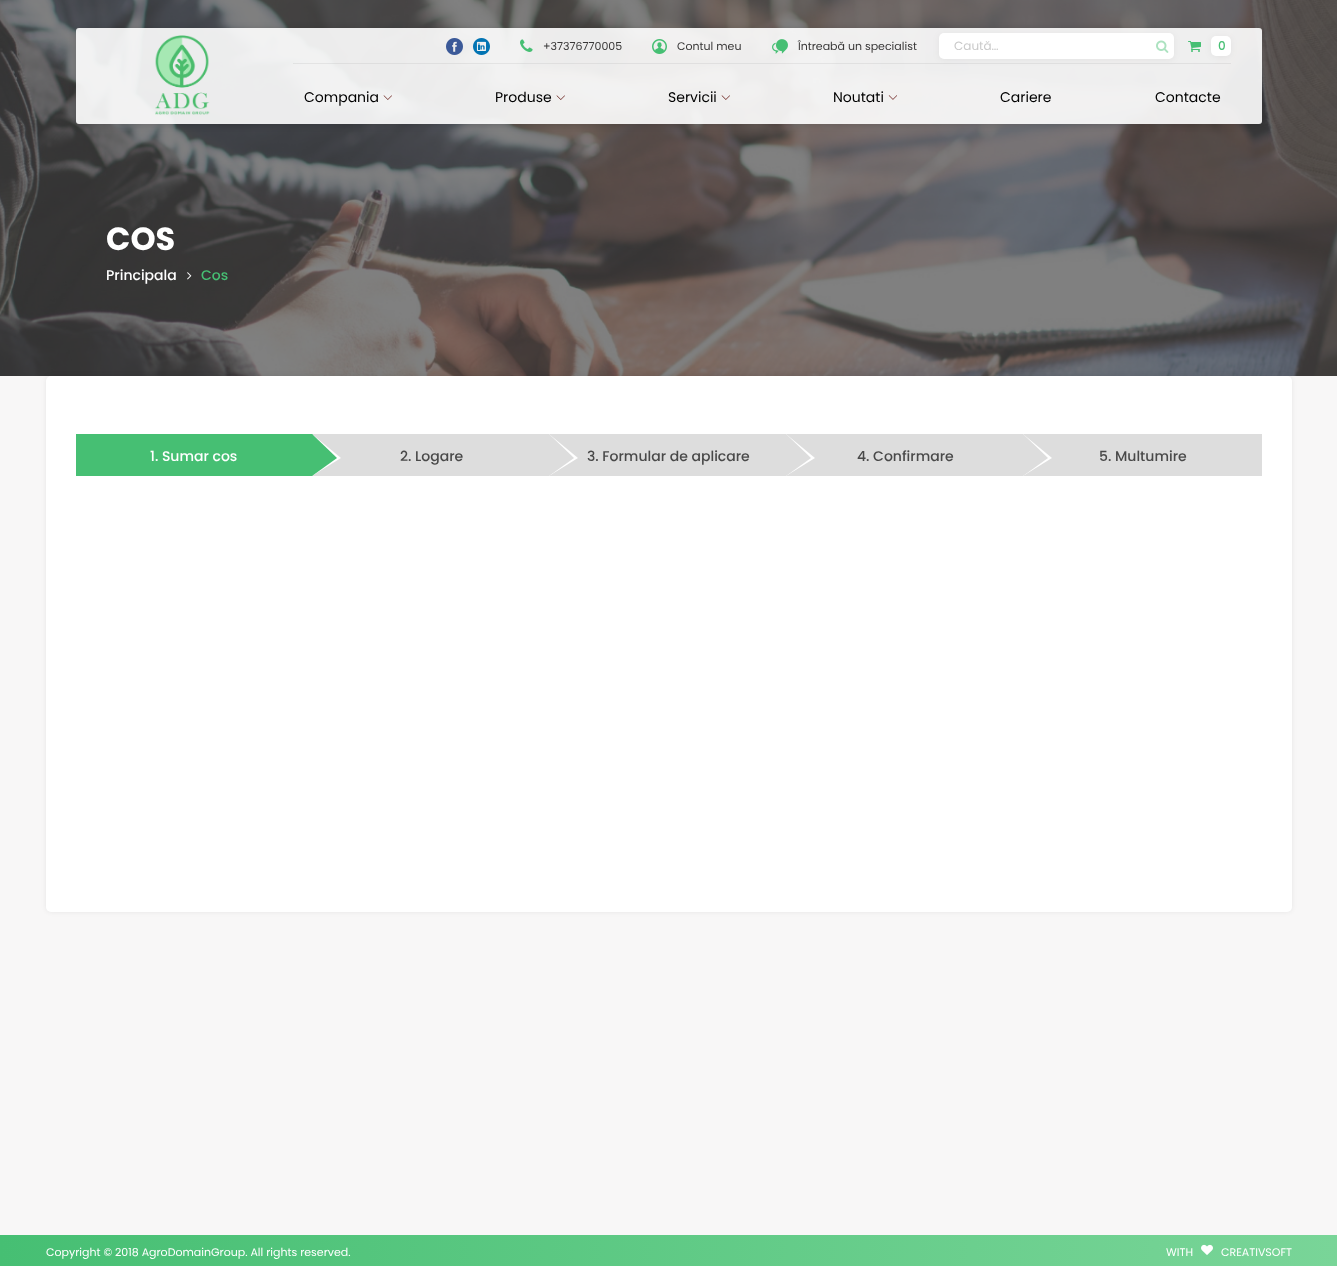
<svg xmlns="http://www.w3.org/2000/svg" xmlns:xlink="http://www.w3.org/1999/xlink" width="1337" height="1266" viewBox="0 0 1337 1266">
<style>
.cls-1{font:11px Poppins;fill:#383737}
.cls-2{font:12px Poppins;fill:#c9c9c9}
.cls-3{font:500 12px Poppins;fill:#46bf73}
.cls-4{font:14px Poppins;fill:#000000}
.cls-5{font:bold 32px Poppins;fill:#ffffff}
.cls-6{font:500 14px Poppins;fill:#ffffff}
.cls-7{font:500 14px Poppins;fill:#46bf73}
.cls-8{font:500 14px Poppins;fill:#494949}
.cls-9{font:11px Poppins;fill:#ffffff}
</style>
<defs>
<clipPath id="clip1"><path d="M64 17H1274V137H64ZM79 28H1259C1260.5 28 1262 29.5 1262 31V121C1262 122.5 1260.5 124 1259 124H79C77.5 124 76 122.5 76 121V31C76 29.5 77.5 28 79 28Z" clip-rule="evenodd"/></clipPath>
<linearGradient id="g1" gradientUnits="userSpaceOnUse" x1="0" y1="1251" x2="1337" y2="1251"><stop offset="0" stop-color="#46bf73"/><stop offset="1" stop-color="#79d598"/></linearGradient>
</defs>
<rect width="100%" height="100%" fill="#f8f7f7"/>
<image xlink:href="image12.png" x="0" y="0" width="1337" height="376"/>
<g clip-path="url(#clip1)">
<rect fill="#000000" fill-opacity="0.15" filter="blur(3.5px)" x="76" y="29" width="1186" height="96" rx="3"/>
</g>
<rect fill="#ffffff" fill-opacity="0.9" x="76" y="28" width="1186" height="96" rx="3"/>
<image xlink:href="image0.png" x="155" y="35" width="55" height="80"/>
<image xlink:href="image1.png" x="446" y="38" width="17" height="17"/>
<image xlink:href="image2.png" x="473" y="38" width="17" height="17"/>
<image xlink:href="image3.png" x="520" y="39" width="13" height="13"/>
<image xlink:href="image4.png" x="652" y="39" width="15" height="15"/>
<image xlink:href="image5.png" x="772" y="39" width="16" height="15"/>
<rect fill="#000000" fill-opacity="0.05" filter="blur(3.5px)" x="939" y="34" width="235" height="26" rx="5"/>
<rect fill="#ffffff" x="939" y="33" width="235" height="26" rx="5"/>
<image xlink:href="image6.png" x="1156" y="40" width="13" height="13"/>
<image xlink:href="image7.png" x="1188" y="41" width="13" height="11"/>
<rect fill="#000000" fill-opacity="0.05" filter="blur(3.5px)" x="1211" y="37" width="20" height="20" rx="5"/>
<rect fill="#ffffff" x="1211" y="36" width="20" height="20" rx="5"/>
<rect fill="#707070" fill-opacity="0.11" x="293" y="63" width="938" height="1"/>
<image xlink:href="image8.png" x="383" y="95" width="9" height="5"/>
<image xlink:href="image9.png" x="556" y="95" width="9" height="5"/>
<image xlink:href="image10.png" x="721" y="95" width="9" height="5"/>
<image xlink:href="image11.png" x="888" y="95" width="9" height="5"/>
<image xlink:href="image13.png" x="187" y="272" width="5" height="8"/>
<rect fill="#000000" fill-opacity="0.07" filter="blur(2.5px)" x="46" y="376" width="1246" height="536" rx="5"/>
<rect fill="#ffffff" x="46" y="376" width="1246" height="536" rx="5"/>
<rect fill="#46bf73" x="76" y="434" width="237" height="42"/>
<rect fill="#dddddd" x="313" y="434" width="949" height="42"/>
<path fill="#ffffff" d="M312 476V434L341 458Z"/>
<path fill="#46bf73" d="M312 476V434L337 458Z"/>
<path fill="#ffffff" d="M549 476V434L578 458Z"/>
<path fill="#dddddd" d="M549 476V434L574 458Z"/>
<path fill="#ffffff" d="M786 476V434L815 458Z"/>
<path fill="#dddddd" d="M786 476V434L811 458Z"/>
<path fill="#ffffff" d="M1023 476V434L1052 458Z"/>
<path fill="#dddddd" d="M1023 476V434L1048 458Z"/>
<rect fill="url(#g1)" x="0" y="1235" width="1337" height="31"/>
<image xlink:href="image14.png" x="1201" y="1244" width="12" height="11"/>
<text class="cls-1" x="543" y="50">+37376770005</text>
<text class="cls-1" x="677" y="50">Contul meu</text>
<text class="cls-1" x="798" y="50">Întreabă un specialist</text>
<text class="cls-2" x="954" y="50">Caută…</text>
<text class="cls-3" x="1218" y="50">0</text>
<text class="cls-4" x="304" y="102">Compania</text>
<text class="cls-4" x="495" y="102">Produse</text>
<text class="cls-4" x="668" y="102">Servicii</text>
<text class="cls-4" x="833" y="102">Noutati</text>
<text class="cls-4" x="1000" y="102">Cariere</text>
<text class="cls-4" x="1155" y="102">Contacte</text>
<text class="cls-5" x="106" y="250">COS</text>
<text class="cls-6" x="106" y="280">Principala</text>
<text class="cls-7" x="201" y="280">Cos</text>
<text class="cls-6" x="150" y="461">1. Sumar cos</text>
<text class="cls-8" x="400" y="461">2. Logare</text>
<text class="cls-8" x="587" y="461">3. Formular de aplicare</text>
<text class="cls-8" x="857" y="461">4. Confirmare</text>
<text class="cls-8" x="1099" y="461">5. Multumire</text>
<text class="cls-9" x="46" y="1256">Copyright © 2018 AgroDomainGroup. All rights reserved.</text>
<text class="cls-9" x="1166" y="1256">WITH</text>
<text class="cls-9" x="1221" y="1256">CREATIVSOFT</text>
</svg>
